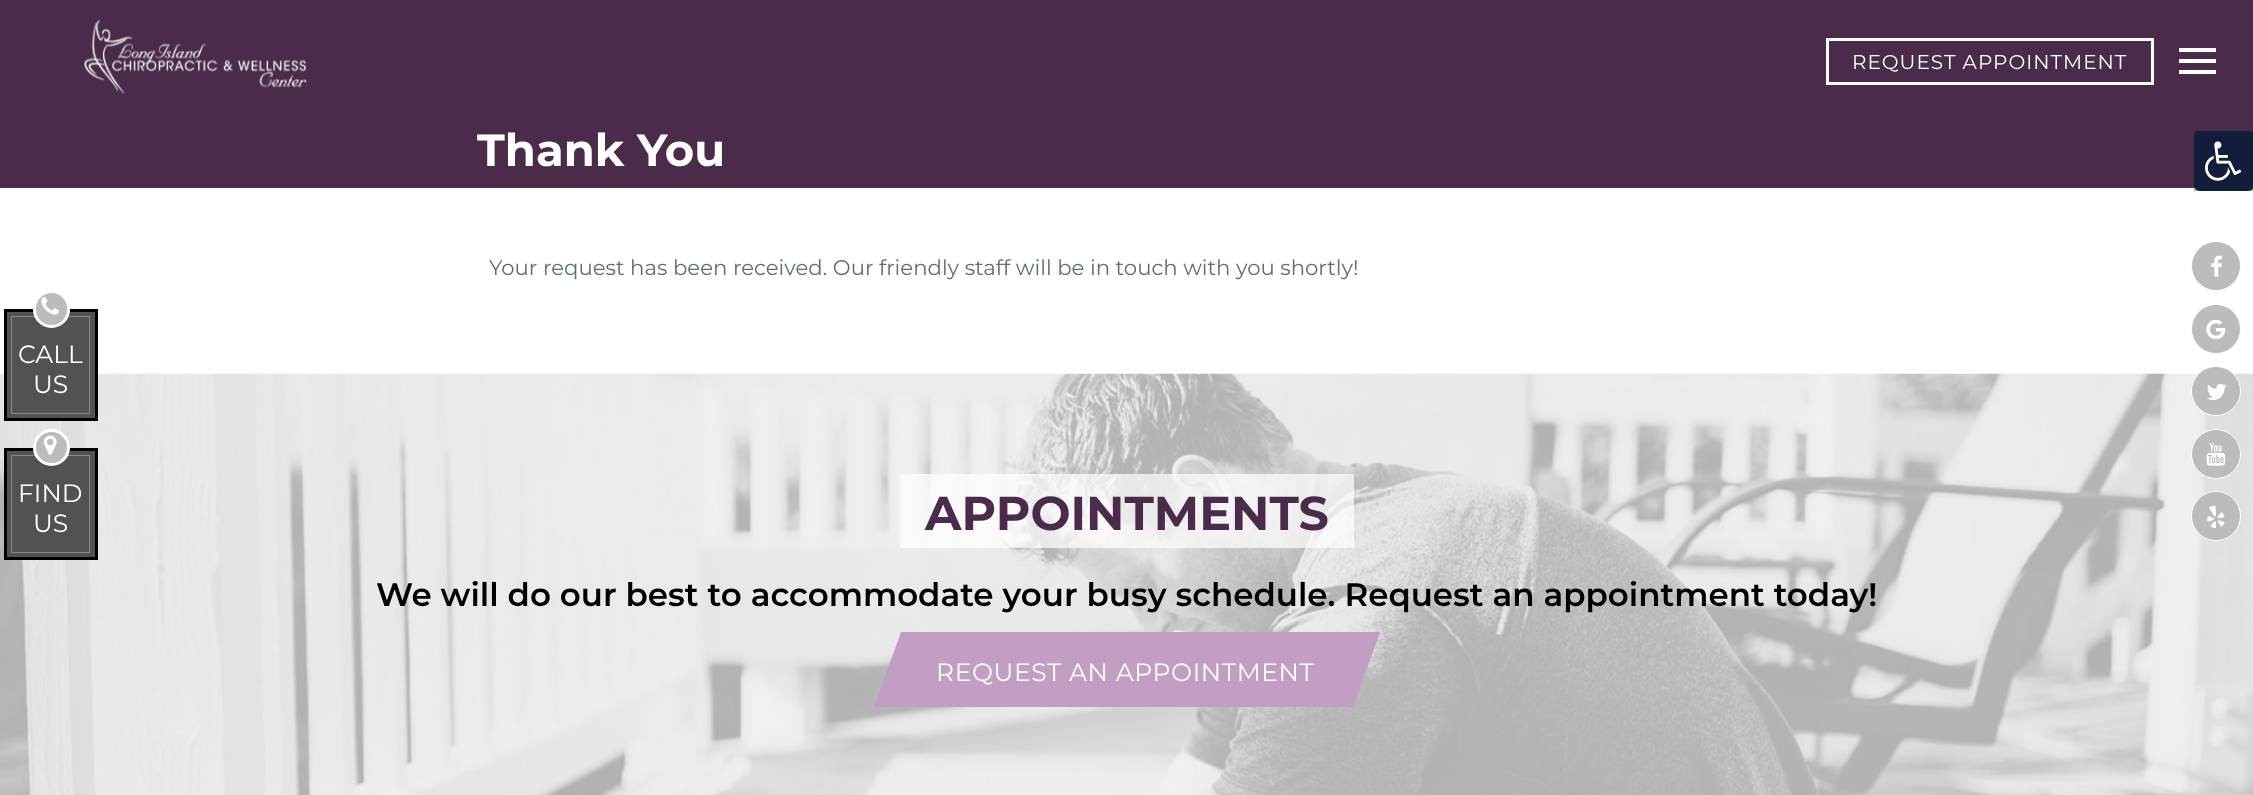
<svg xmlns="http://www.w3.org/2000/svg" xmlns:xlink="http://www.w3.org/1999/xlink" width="2253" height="795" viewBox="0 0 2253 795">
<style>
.cls-1{font:20px Montserrat;letter-spacing:1px;fill:#ffffff}
.cls-2{font:bold 45px Montserrat;fill:#ffffff}
.cls-3{font:21.25px Montserrat;fill:#606c76}
.cls-4{font:bold 47.5px Montserrat;fill:#4a2b4a}
.cls-5{font:600 32.5px Montserrat;fill:#000000}
.cls-6{font:25px Montserrat;letter-spacing:0.6px;fill:#ffffff}
.cls-7{font:25px Montserrat;fill:#ffffff}
</style>
<rect width="100%" height="100%" fill="#ffffff"/>
<rect fill="#b3b3b3" x="2194" y="188" width="59" height="3"/>
<rect fill="#4a2b4a" x="0" y="0" width="2253" height="188"/>
<image xlink:href="image0.png" x="84" y="19" width="224" height="75"/>
<rect fill="none" stroke="#ffffff" stroke-width="3" x="1827.5" y="39.5" width="325" height="44"/>
<rect fill="#ffffff" x="2179" y="48" width="37" height="4"/>
<rect fill="#ffffff" x="2179" y="59" width="37" height="4"/>
<rect fill="#ffffff" x="2179" y="70" width="37" height="4"/>
<rect fill="#341e34" x="2194" y="131" width="59" height="57"/>
<circle fill="#bcbcba" stroke="#ffffff" cx="2216" cy="266" r="24.5"/>
<image xlink:href="image1.png" x="2211" y="255" width="11" height="22"/>
<circle fill="#bcbcba" stroke="#ffffff" cx="2216" cy="329" r="24.5"/>
<image xlink:href="image2.png" x="2206" y="319" width="20" height="21"/>
<image xlink:href="image6.png" x="0" y="373" width="2253" height="422"/>
<circle fill="#bcbcba" stroke="#ffffff" cx="2216" cy="391" r="24.5"/>
<image xlink:href="image3.png" x="2207" y="384" width="20" height="16"/>
<circle fill="#bcbcba" stroke="#ffffff" cx="2216" cy="454" r="24.5"/>
<image xlink:href="image4.png" x="2206" y="443" width="20" height="23"/>
<circle fill="#bcbcba" stroke="#ffffff" cx="2216" cy="516" r="24.5"/>
<image xlink:href="image5.png" x="2207" y="505" width="18" height="24"/>
<rect fill="#ffffff" fill-opacity="0.7" x="900" y="474" width="454" height="74"/>
<path fill="#c29fc2" d="M901 632H1380L1353 707H874Z"/>
<rect fill="#121d3b" x="2194" y="131" width="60" height="60" rx="6"/>
<image xlink:href="image7.png" x="2205" y="141" width="37" height="40"/>
<rect fill="#525252" stroke="#000000" stroke-width="3" x="5.5" y="310.5" width="91" height="109"/>
<rect fill="none" stroke="#888888" x="11.5" y="316.5" width="78" height="97"/>
<rect fill="#bcbcba" stroke="#ffffff" stroke-width="3" x="34.5" y="291.5" width="34" height="35" rx="17"/>
<image xlink:href="image8.png" x="41" y="297" width="18" height="18"/>
<rect fill="#525252" stroke="#000000" stroke-width="3" x="5.5" y="449.5" width="91" height="109"/>
<rect fill="none" stroke="#888888" x="11.5" y="455.5" width="78" height="97"/>
<circle fill="#bcbcba" stroke="#ffffff" stroke-width="3" cx="51.5" cy="447.5" r="17"/>
<image xlink:href="image9.png" x="43" y="435" width="14" height="20"/>
<text class="cls-1" x="1852" y="69">REQUEST APPOINTMENT</text>
<text class="cls-2" x="477" y="166">Thank You</text>
<text class="cls-3" x="489" y="275">Your request has been received. Our friendly staff will be in touch with you shortly!</text>
<text class="cls-4" x="925" y="530">APPOINTMENTS</text>
<text class="cls-5" x="376" y="606">We will do our best to accommodate your busy schedule. Request an appointment today!</text>
<text class="cls-6" x="936" y="681">REQUEST AN APPOINTMENT</text>
<text class="cls-7" x="18" y="363">CALL</text>
<text class="cls-7" x="33" y="393">US</text>
<text class="cls-7" x="18" y="502">FIND</text>
<text class="cls-7" x="33" y="532">US</text>
</svg>
